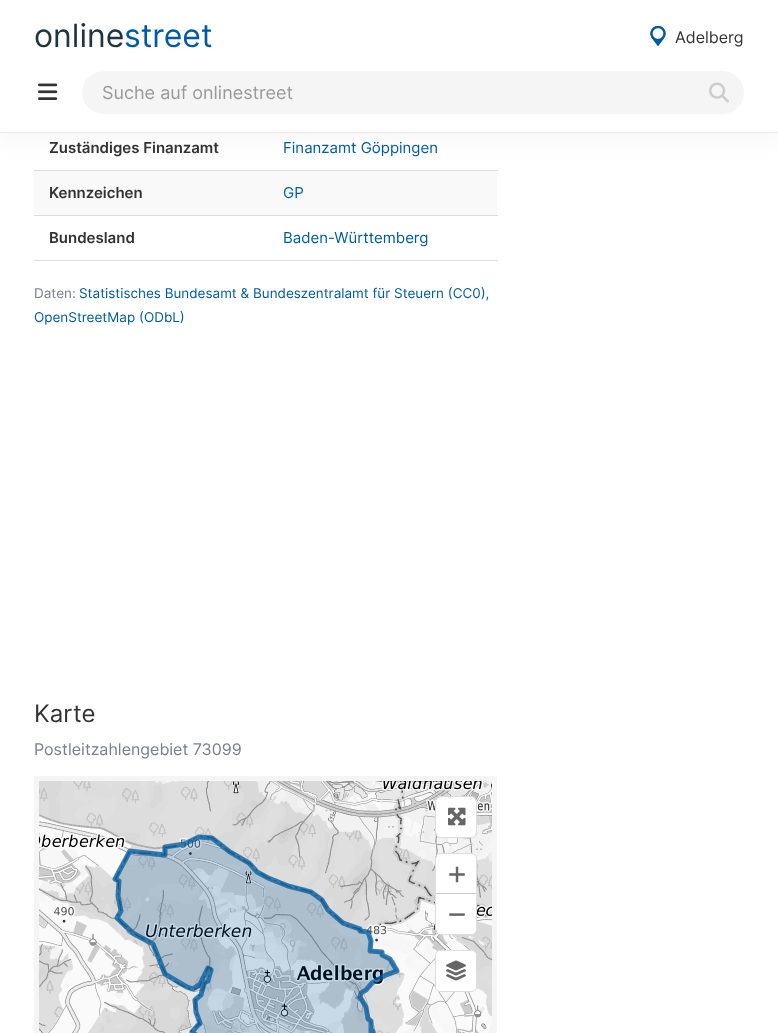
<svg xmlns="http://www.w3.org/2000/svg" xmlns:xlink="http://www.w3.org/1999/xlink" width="778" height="1033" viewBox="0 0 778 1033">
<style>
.cls-1{font:32px Inter;fill:#213540}
.cls-2{font:32px Inter;fill:#005ca2}
.cls-3{font:16px Inter;fill:#333333}
.cls-4{font:18px Inter;fill:#999999}
.cls-5{font:600 15px Inter;fill:#333333}
.cls-6{font:15px Inter;fill:#005ca2}
.cls-7{font:13.5px Inter;fill:#77808d}
.cls-8{font:13.5px Inter;fill:#005ca2}
.cls-9{font:24px Inter;fill:#333333}
.cls-10{font:16px Inter;fill:#77808d}
.cls-11{font:30px DejaVu Sans Mono;fill:#666666}
</style>
<rect width="100%" height="100%" fill="#ffffff"/>
<rect fill="#f9f9f9" x="34" y="171" width="463" height="44"/>
<rect fill="#dddddd" x="34" y="170" width="464" height="1"/>
<rect fill="#ebebeb" fill-opacity="0.35" filter="blur(10px)" x="-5" y="0" width="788" height="143"/>
<rect fill="#ffffff" x="0" y="0" width="778" height="132"/>
<rect fill="#ebebeb" x="0" y="132" width="778" height="1"/>
<image xlink:href="image0.png" x="650" y="26" width="16" height="20"/>
<image xlink:href="image1.png" x="38" y="83" width="20" height="17"/>
<rect fill="#f5f5f5" x="82" y="71" width="662" height="43" rx="21.5"/>
<image xlink:href="image2.png" x="709" y="82" width="20" height="21"/>
<rect fill="#dddddd" x="34" y="215" width="464" height="1"/>
<rect fill="#dddddd" x="34" y="260" width="464" height="1"/>
<rect fill="none" stroke="#f5f5f5" stroke-width="5" x="36.5" y="778.5" width="458" height="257"/>
<image xlink:href="image3.png" x="39" y="781" width="130" height="83"/>
<image xlink:href="image4.png" x="169" y="781" width="256" height="83"/>
<image xlink:href="image5.png" x="425" y="781" width="67" height="83"/>
<image xlink:href="image6.png" x="39" y="864" width="130" height="169"/>
<image xlink:href="image7.png" x="169" y="864" width="256" height="169"/>
<image xlink:href="image8.png" x="425" y="864" width="67" height="169"/>
<image xlink:href="image9.png" x="112" y="834" width="288" height="199"/>
<rect fill="none" stroke="#dddddd" x="435.5" y="796.5" width="41" height="41" rx="4.5"/>
<rect fill="#ffffff" x="436" y="797" width="40" height="40" rx="5"/>
<image xlink:href="image10.png" x="448" y="807" width="18" height="19"/>
<rect fill="none" stroke="#dddddd" x="435.5" y="853.5" width="41" height="81" rx="4.5"/>
<path fill="#ffffff" d="M441 854H471C474 854 476 856 476 859V894H436V859C436 856 438 854 441 854Z"/>
<rect fill="#cccccc" x="436" y="893" width="40" height="1"/>
<path fill="#ffffff" d="M436 894H476V929C476 932 474 934 471 934H441C438 934 436 932 436 929Z"/>
<rect fill="#ffffff" stroke="#dddddd" x="435.5" y="950.5" width="41" height="41" rx="4.5"/>
<image xlink:href="image11.png" x="446" y="960" width="20" height="21"/>
<text class="cls-1" x="34" y="47">online</text>
<text class="cls-2" x="124" y="47">street</text>
<text class="cls-3" x="675" y="43">Adelberg</text>
<text class="cls-4" x="102" y="99">Suche auf onlinestreet</text>
<text class="cls-5" x="49" y="153">Zuständiges Finanzamt</text>
<text class="cls-6" x="283" y="153">Finanzamt Göppingen</text>
<text class="cls-5" x="49" y="198">Kennzeichen</text>
<text class="cls-6" x="283" y="198">GP</text>
<text class="cls-5" x="49" y="243">Bundesland</text>
<text class="cls-6" x="283" y="243">Baden-Württemberg</text>
<text class="cls-7" x="34" y="298">Daten:</text>
<text class="cls-8" x="79" y="298">Statistisches Bundesamt &amp; Bundeszentralamt für Steuern (CC0),</text>
<text class="cls-8" x="34" y="322">OpenStreetMap (ODbL)</text>
<text class="cls-9" x="34" y="722">Karte</text>
<text class="cls-10" x="34" y="755">Postleitzahlengebiet 73099</text>
<text class="cls-11"><tspan x="448" y="884">+</tspan><tspan x="448" y="924">−</tspan></text>
</svg>
